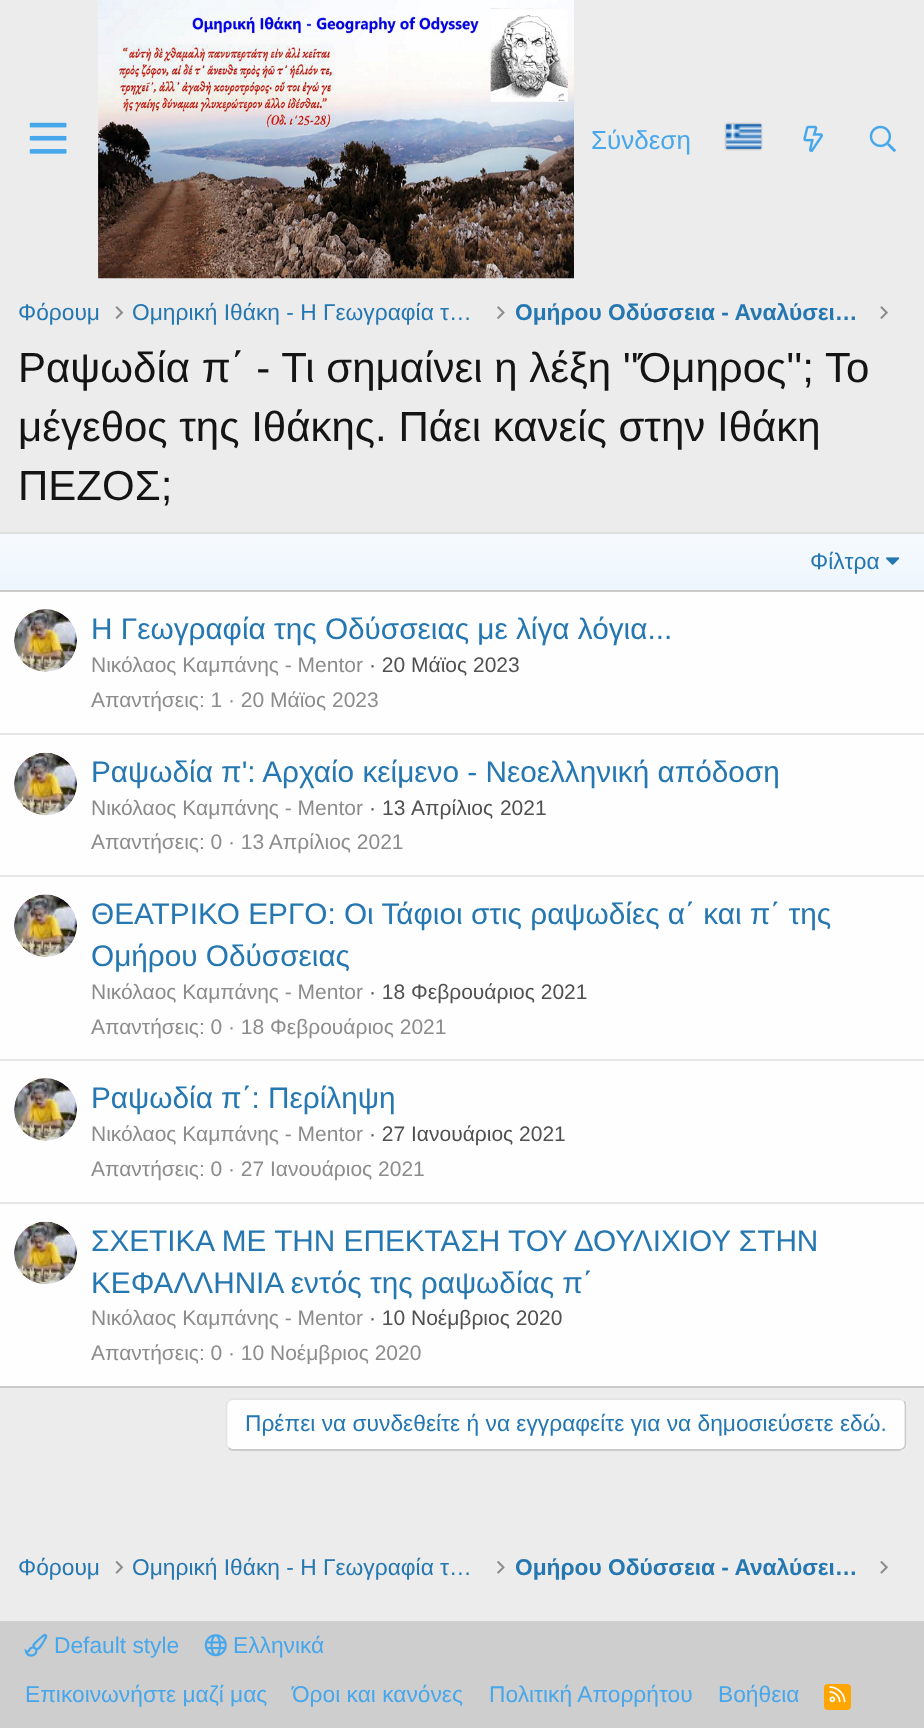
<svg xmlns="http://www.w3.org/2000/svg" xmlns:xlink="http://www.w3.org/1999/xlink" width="924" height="1728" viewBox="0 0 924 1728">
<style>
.cls-1{font:26px Liberation Sans;fill:#47a7eb}
.cls-2{font:22.75px Liberation Sans;fill:#2577b1}
.cls-3{font:bold 22.75px Liberation Sans;fill:#2577b1}
.cls-4{font:42px Liberation Sans;fill:#141414}
.cls-5{font:29.75px Liberation Sans;fill:#2577b1}
.cls-6{font:21px Liberation Sans;fill:#8c8c8c}
.cls-7{font:21px Liberation Sans;fill:#505050}
.cls-8{font:22.75px Liberation Sans;fill:#47a7eb}
</style>
<defs>
<linearGradient id="g1" gradientUnits="userSpaceOnUse" x1="462" y1="590" x2="462" y2="534"><stop offset="0" stop-color="#edf6fd"/><stop offset="1" stop-color="#f6fafe"/></linearGradient>
</defs>
<rect width="100%" height="100%" fill="#ececec"/>
<image xlink:href="image0.png" x="29" y="122" width="38" height="32"/>
<image xlink:href="image1.png" x="98" y="0" width="476" height="279"/>
<rect fill="#888888" filter="blur(1px)" x="726" y="124" width="35" height="25"/>
<rect fill="#dbdbdb" x="726" y="124" width="35" height="25"/>
<image xlink:href="image2.png" x="726" y="124" width="36" height="25"/>
<image xlink:href="image3.png" x="803" y="125" width="20" height="27"/>
<image xlink:href="image4.png" x="869" y="125" width="27" height="27"/>
<image xlink:href="image5.png" x="115" y="306" width="9" height="13"/>
<image xlink:href="image6.png" x="497" y="306" width="8" height="13"/>
<image xlink:href="image7.png" x="880" y="306" width="8" height="13"/>
<rect fill="#fefefe" x="0" y="592" width="924" height="794"/>
<rect fill="#dfdfdf" x="0" y="532" width="924" height="2"/>
<rect fill="#cbcbcb" x="0" y="1386" width="924" height="2"/>
<rect fill="url(#g1)" x="0" y="534" width="924" height="56"/>
<rect fill="#cbcbcb" x="0" y="590" width="924" height="2"/>
<image xlink:href="image8.png" x="886" y="557" width="14" height="8"/>
<image xlink:href="image9.png" x="14" y="609" width="63" height="63"/>
<rect fill="#e7e7e7" x="0" y="733" width="924" height="2"/>
<image xlink:href="image10.png" x="14" y="752" width="63" height="64"/>
<rect fill="#e7e7e7" x="0" y="875" width="924" height="2"/>
<image xlink:href="image11.png" x="14" y="894" width="63" height="63"/>
<rect fill="#e7e7e7" x="0" y="1059" width="924" height="2"/>
<image xlink:href="image9.png" x="14" y="1078" width="63" height="63"/>
<rect fill="#e7e7e7" x="0" y="1202" width="924" height="2"/>
<image xlink:href="image12.png" x="14" y="1221" width="63" height="64"/>
<rect fill="#fefefe" x="226" y="1398" width="681" height="53" rx="7"/>
<path fill="none" stroke="#cbcbcb" stroke-width="1.8" d="M904 1401C905 1402 905.5 1403.5 905.5 1405V1444C905.5 1445.5 905 1447 904 1448C902.5 1449 901 1450 899.5 1450H233C231 1450 229.5 1449 228.5 1448"/>
<path fill="none" stroke="#e5e5e5" stroke-width="1.8" d="M228.5 1448C227.5 1447 226.5 1445.5 226.5 1444V1405C226.5 1403.5 227.5 1402 228.5 1401C229.5 1400 231 1399 233 1399H899.5C901 1399 902.5 1400 904 1401"/>
<image xlink:href="image13.png" x="115" y="1561" width="9" height="13"/>
<image xlink:href="image14.png" x="497" y="1561" width="8" height="13"/>
<image xlink:href="image15.png" x="880" y="1561" width="8" height="13"/>
<rect fill="#cecece" x="0" y="1621" width="924" height="107"/>
<image xlink:href="image16.png" x="24" y="1633" width="24" height="24"/>
<image xlink:href="image17.png" x="204" y="1634" width="23" height="23"/>
<rect fill="#ffa500" x="824" y="1684" width="27" height="26" rx="4"/>
<image xlink:href="image18.png" x="829" y="1686" width="17" height="17"/>
<text class="cls-1" x="591" y="149">Σύνδεση</text>
<text class="cls-2" x="18" y="320">Φόρουμ</text>
<text class="cls-2" x="132" y="320">Ομηρική Ιθάκη - Η Γεωγραφία τ…</text>
<text class="cls-3" x="515" y="320">Ομήρου Οδύσσεια - Αναλύσει…</text>
<text class="cls-4"><tspan x="18" y="382">Ραψωδία π΄ - Τι σημαίνει η λέξη ''Όμηρος''; Το</tspan><tspan x="18" y="441">μέγεθος της Ιθάκης. Πάει κανείς στην Ιθάκη</tspan><tspan x="18" y="500">ΠΕΖΟΣ;</tspan></text>
<text class="cls-2" x="810" y="569">Φίλτρα</text>
<text class="cls-5" x="91" y="639">Η Γεωγραφία της Οδύσσειας με λίγα λόγια...</text>
<text class="cls-6" x="91" y="672">Νικόλαος Καμπάνης - Mentor</text>
<text class="cls-7" x="369" y="672">· 20 Μάϊος 2023</text>
<text class="cls-6" x="91" y="707">Απαντήσεις: 1</text>
<text class="cls-6" x="228" y="707">· 20 Μάϊος 2023</text>
<text class="cls-5" x="91" y="782">Ραψωδία π': Αρχαίο κείμενο - Νεοελληνική απόδοση</text>
<text class="cls-6" x="91" y="815">Νικόλαος Καμπάνης - Mentor</text>
<text class="cls-7" x="369" y="815">·</text>
<text class="cls-7" x="382" y="815" word-spacing="1">13 Απρίλιος 2021</text>
<text class="cls-6" x="91" y="849">Απαντήσεις: 0</text>
<text class="cls-6" x="228" y="849">· 13 Απρίλιος 2021</text>
<text class="cls-5"><tspan x="91" y="924">ΘΕΑΤΡΙΚΟ ΕΡΓΟ: Οι Τάφιοι στις ραψωδίες α΄ και π΄ της</tspan><tspan x="91" y="966">Ομήρου Οδύσσειας</tspan></text>
<text class="cls-6" x="91" y="999">Νικόλαος Καμπάνης - Mentor</text>
<text class="cls-7" x="369" y="999">· 18 Φεβρουάριος 2021</text>
<text class="cls-6" x="91" y="1034">Απαντήσεις: 0</text>
<text class="cls-6" x="228" y="1034">· 18 Φεβρουάριος 2021</text>
<text class="cls-5" x="91" y="1108">Ραψωδία π΄: Περίληψη</text>
<text class="cls-6" x="91" y="1141">Νικόλαος Καμπάνης - Mentor</text>
<text class="cls-7" x="369" y="1141">· 27 Ιανουάριος 2021</text>
<text class="cls-6" x="91" y="1176">Απαντήσεις: 0</text>
<text class="cls-6" x="228" y="1176">· 27 Ιανουάριος 2021</text>
<text class="cls-5"><tspan x="91" y="1251">ΣΧΕΤΙΚΑ ΜΕ ΤΗΝ ΕΠΕΚΤΑΣΗ ΤΟΥ ΔΟΥΛΙΧΙΟΥ ΣΤΗΝ</tspan><tspan x="91" y="1293">ΚΕΦΑΛΛΗΝΙΑ εντός της ραψωδίας π΄</tspan></text>
<text class="cls-6" x="91" y="1325">Νικόλαος Καμπάνης - Mentor</text>
<text class="cls-7" x="369" y="1325">· 10 Νοέμβριος 2020</text>
<text class="cls-6" x="91" y="1360">Απαντήσεις: 0</text>
<text class="cls-6" x="228" y="1360">· 10 Νοέμβριος 2020</text>
<text class="cls-2" x="245" y="1431">Πρέπει να συνδεθείτε ή να εγγραφείτε για να δημοσιεύσετε εδώ.</text>
<text class="cls-2" x="18" y="1575">Φόρουμ</text>
<text class="cls-2" x="132" y="1575">Ομηρική Ιθάκη - Η Γεωγραφία τ…</text>
<text class="cls-3" x="515" y="1575">Ομήρου Οδύσσεια - Αναλύσει…</text>
<text class="cls-8" x="54" y="1653">Default style</text>
<text class="cls-8" x="233" y="1653">Ελληνικά</text>
<text class="cls-8" x="25" y="1702">Επικοινωνήστε μαζί μας</text>
<text class="cls-8" x="292" y="1702">Όροι και κανόνες</text>
<text class="cls-8" x="489" y="1702">Πολιτική Απορρήτου</text>
<text class="cls-8" x="718" y="1702">Βοήθεια</text>
</svg>
